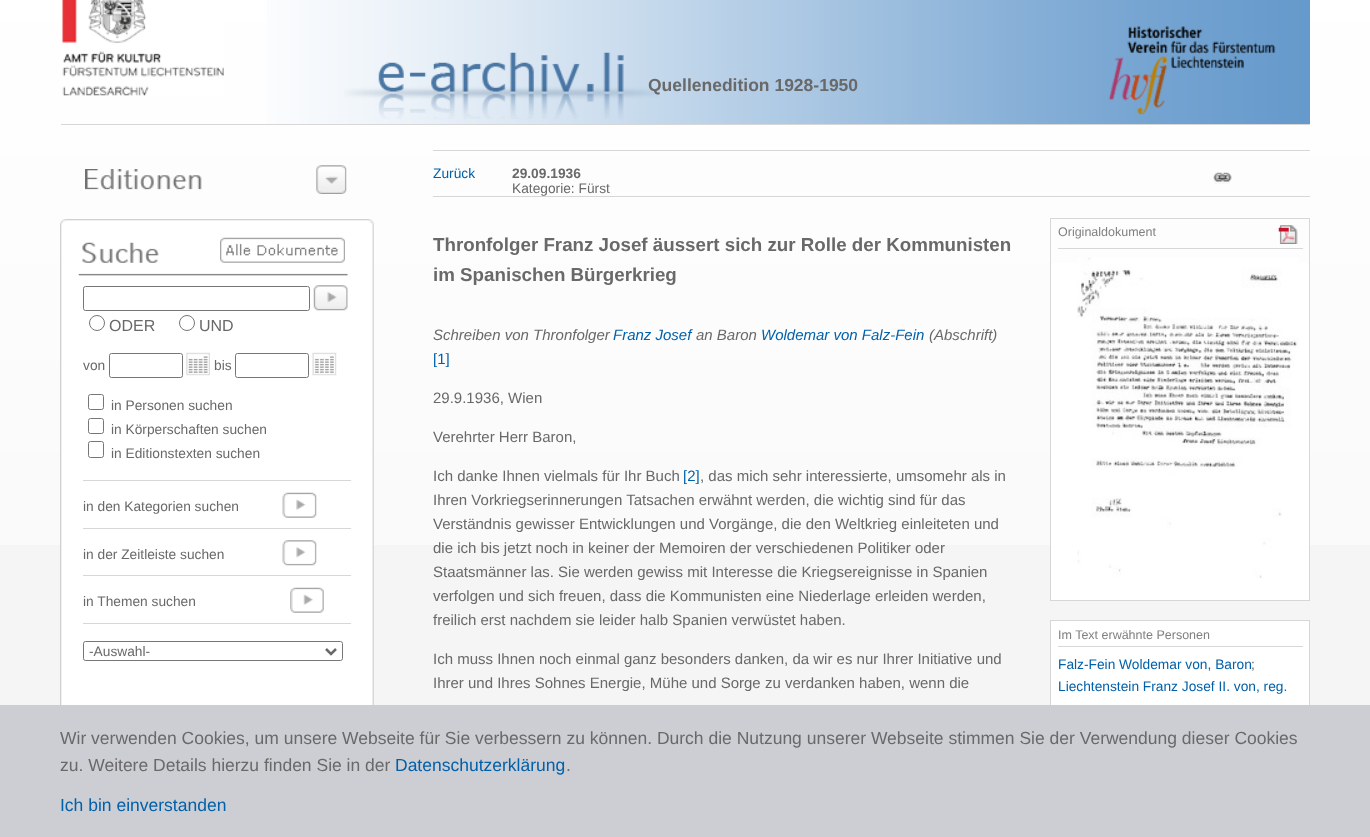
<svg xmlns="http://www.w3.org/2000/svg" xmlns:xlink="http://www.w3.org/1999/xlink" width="1370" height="837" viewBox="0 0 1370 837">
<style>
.cls-1{font:bold 17.5px Liberation Sans;fill:#696969}
.cls-2{font:16px Liberation Sans;fill:#696969}
.cls-3{font:13.75px Liberation Sans;fill:#696969}
.cls-4{font:13.75px Liberation Sans;fill:#0060aa}
.cls-5{font:bold 13.75px Liberation Sans;fill:#696969}
.cls-6{font:bold 18.75px Liberation Sans;fill:#696969}
.cls-7{font:italic 15px Liberation Sans;fill:#696969}
.cls-8{font:italic 15px Liberation Sans;fill:#0060aa}
.cls-9{font:15px Liberation Sans;fill:#0060aa}
.cls-10{font:15px Liberation Sans;fill:#696969}
.cls-11{font:12.5px Liberation Sans;fill:#808080}
.cls-12{font:17.5px Liberation Sans;fill:#696969}
.cls-13{font:17.5px Liberation Sans;fill:#0060aa}
</style>
<rect width="100%" height="100%" fill="#f5f5f5"/>
<image xlink:href="image0.png" x="0" y="0" width="1370" height="545"/>
<image xlink:href="image1.png" x="267" y="0" width="1043" height="124"/>
<image xlink:href="image2.png" x="62" y="0" width="162" height="96"/>
<image xlink:href="image3.png" x="344" y="52" width="315" height="67"/>
<image xlink:href="image4.png" x="1108" y="26" width="168" height="89"/>
<rect fill="#d7d7d7" x="61" y="124" width="1249" height="1"/>
<image xlink:href="image5.png" x="85" y="169" width="117" height="21"/>
<image xlink:href="image6.png" x="316" y="165" width="31" height="29"/>
<image xlink:href="image7.png" x="60" y="219" width="314" height="486"/>
<image xlink:href="image8.png" x="220" y="237" width="125" height="26"/>
<rect fill="none" stroke="#767676" x="83.5" y="286.5" width="226" height="24" rx="2"/>
<image xlink:href="image9.png" x="313" y="285" width="35" height="26"/>
<circle fill="none" stroke="#767676" cx="97" cy="323" r="7.5"/>
<circle fill="none" stroke="#767676" cx="187" cy="323" r="7.5"/>
<rect fill="none" stroke="#767676" x="109.5" y="353.5" width="73" height="24" rx="2"/>
<image xlink:href="image10.png" x="186" y="352" width="24" height="24"/>
<rect fill="none" stroke="#767676" x="235.5" y="353.5" width="73" height="24" rx="2"/>
<image xlink:href="image11.png" x="312" y="352" width="25" height="24"/>
<rect fill="none" stroke="#767676" x="88.5" y="394.5" width="15" height="15" rx="2"/>
<rect fill="none" stroke="#767676" x="88.5" y="418.5" width="15" height="15" rx="2"/>
<rect fill="none" stroke="#767676" x="88.5" y="441.5" width="15" height="16" rx="2"/>
<rect fill="#d7d7d7" x="83" y="480" width="268" height="1"/>
<image xlink:href="image12.png" x="282" y="492" width="35" height="26"/>
<rect fill="#d7d7d7" x="83" y="528" width="268" height="1"/>
<image xlink:href="image13.png" x="282" y="540" width="35" height="26"/>
<rect fill="#d7d7d7" x="83" y="575" width="268" height="1"/>
<image xlink:href="image14.png" x="290" y="587" width="34" height="26"/>
<rect fill="#d7d7d7" x="83" y="623" width="268" height="1"/>
<rect fill="none" stroke="#767676" x="83.5" y="641.5" width="259" height="19" rx="2"/>
<path fill="none" stroke="#696969" stroke-width="2.5" d="M326 649L331 654L336 649"/>
<rect fill="#d7d7d7" x="433" y="150" width="877" height="1"/>
<image xlink:href="image15.png" x="1213" y="172" width="19" height="12"/>
<rect fill="#d7d7d7" x="433" y="196" width="877" height="1"/>
<rect fill="#ffffff" x="1051" y="263" width="258" height="337"/>
<rect fill="none" stroke="#d7d7d7" x="1050.5" y="218.5" width="259" height="382"/>
<image xlink:href="image16.png" x="1278" y="225" width="20" height="19"/>
<rect fill="#d7d7d7" x="1058" y="248" width="245" height="1"/>
<image xlink:href="image17.png" x="1077" y="257" width="222" height="321"/>
<rect fill="#ffffff" x="1051" y="621" width="258" height="84"/>
<rect fill="none" stroke="#d7d7d7" x="1050.5" y="620.5" width="259" height="107"/>
<rect fill="#d7d7d7" x="1058" y="646" width="245" height="1"/>
<rect fill="#cdced4" x="0" y="705" width="1370" height="132"/>
<text class="cls-1" x="648" y="91">Quellenedition 1928-1950</text>
<text class="cls-2" x="109" y="331">ODER</text>
<text class="cls-2" x="199" y="331">UND</text>
<text class="cls-3" x="83" y="370">von</text>
<text class="cls-3" x="214" y="370">bis</text>
<text class="cls-3"><tspan x="111" y="410">in Personen suchen</tspan><tspan x="111" y="434">in Körperschaften suchen</tspan><tspan x="111" y="458">in Editionstexten suchen</tspan></text>
<text class="cls-3" x="83" y="511">in den Kategorien suchen</text>
<text class="cls-3" x="83" y="559">in der Zeitleiste suchen</text>
<text class="cls-3" x="83" y="606">in Themen suchen</text>
<text class="cls-3" x="89" y="656">-Auswahl-</text>
<text class="cls-4" x="433" y="178">Zurück</text>
<text class="cls-5" x="512" y="178">29.09.1936</text>
<text class="cls-3" x="512" y="193">Kategorie: Fürst</text>
<text class="cls-6"><tspan x="433" y="251">Thronfolger Franz Josef äussert sich zur Rolle der Kommunisten</tspan><tspan x="433" y="281">im Spanischen Bürgerkrieg</tspan></text>
<text class="cls-7" x="433" y="340">Schreiben von Thronfolger</text>
<text class="cls-8" x="613" y="340">Franz Josef</text>
<text class="cls-7" x="696" y="340">an Baron</text>
<text class="cls-8" x="761" y="340">Woldemar von Falz-Fein</text>
<text class="cls-7" x="929" y="340">(Abschrift)</text>
<text class="cls-9" x="433" y="364">[1]</text>
<text class="cls-10" x="433" y="403">29.9.1936, Wien</text>
<text class="cls-10" x="433" y="442">Verehrter Herr Baron,</text>
<text class="cls-10" x="433" y="481">Ich danke Ihnen vielmals für Ihr Buch</text>
<text class="cls-9" x="683" y="481">[2]</text>
<text class="cls-10" x="700" y="481">, das mich sehr interessierte, umsomehr als in</text>
<text class="cls-10"><tspan x="433" y="505">Ihren Vorkriegserinnerungen Tatsachen erwähnt werden, die wichtig sind für das</tspan><tspan x="433" y="529">Verständnis gewisser Entwicklungen und Vorgänge, die den Weltkrieg einleiteten und</tspan><tspan x="433" y="553">die ich bis jetzt noch in keiner der Memoiren der verschiedenen Politiker oder</tspan><tspan x="433" y="577">Staatsmänner las. Sie werden gewiss mit Interesse die Kriegsereignisse in Spanien</tspan><tspan x="433" y="601">verfolgen und sich freuen, dass die Kommunisten eine Niederlage erleiden werden,</tspan><tspan x="433" y="625">freilich erst nachdem sie leider halb Spanien verwüstet haben.</tspan></text>
<text class="cls-10"><tspan x="433" y="664">Ich muss Ihnen noch einmal ganz besonders danken, da wir es nur Ihrer Initiative und</tspan><tspan x="433" y="688">Ihrer und Ihres Sohnes Energie, Mühe und Sorge zu verdanken haben, wenn die</tspan></text>
<text class="cls-11" x="1058" y="236">Originaldokument</text>
<text class="cls-11" x="1058" y="639">Im Text erwähnte Personen</text>
<text class="cls-4" x="1058" y="669">Falz-Fein Woldemar von, Baron</text>
<text class="cls-3" x="1251" y="669">;</text>
<text class="cls-4" x="1058" y="691">Liechtenstein Franz Josef II. von, reg.</text>
<text class="cls-12"><tspan x="60" y="744">Wir verwenden Cookies, um unsere Webseite für Sie verbessern zu können. Durch die Nutzung unserer Webseite stimmen Sie der Verwendung dieser Cookies</tspan><tspan x="60" y="771">zu. Weitere Details hierzu finden Sie in der</tspan></text>
<text class="cls-13" x="395" y="771">Datenschutzerklärung</text>
<text class="cls-12" x="566" y="771">.</text>
<text class="cls-13" x="60" y="811">Ich bin einverstanden</text>
</svg>
